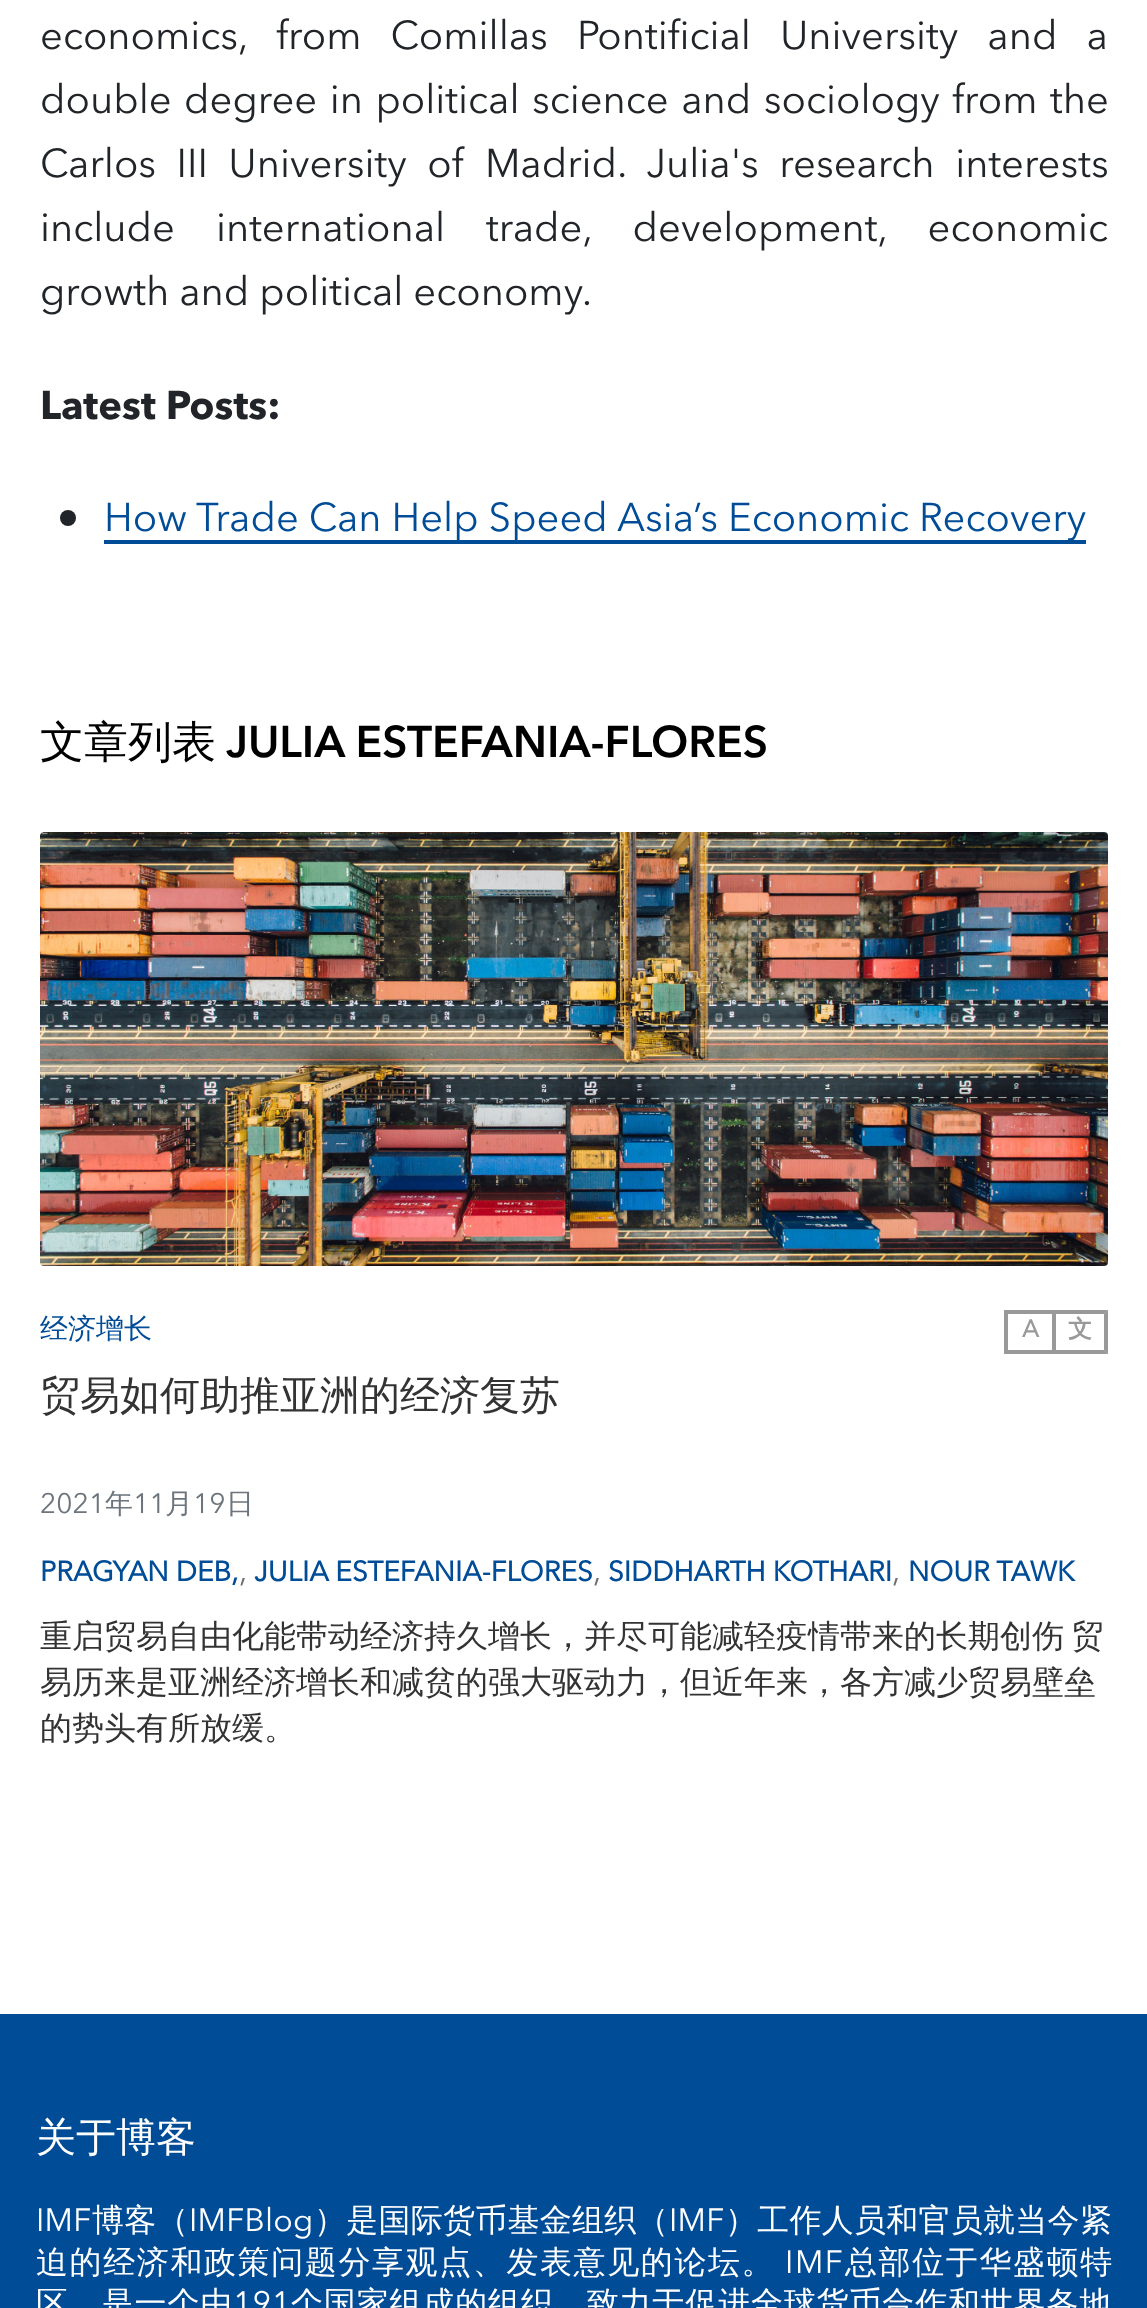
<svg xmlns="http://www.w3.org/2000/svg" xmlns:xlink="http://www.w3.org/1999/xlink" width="1147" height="2308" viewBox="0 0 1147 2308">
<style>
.cls-1{font:40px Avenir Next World;fill:#212529}
.cls-2{font:bold 40px Avenir Next World;fill:#212529}
.cls-3{font:40px Avenir Next World;fill:#004c97}
.cls-4{font:500 44px WenQuanYi Zen Hei;fill:#000000}
.cls-5{font:600 44px Avenir Next World;fill:#000000}
.cls-6{font:500 28px WenQuanYi Zen Hei;fill:#004c97}
.cls-7{font:bold 24px 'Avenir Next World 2';fill:#999999}
.cls-8{font:bold 24px WenQuanYi Zen Hei;fill:#999999}
.cls-9{font:500 40px WenQuanYi Zen Hei;fill:#333333}
.cls-10{font:28px Avenir Next World;fill:#6c757d}
.cls-11{font:500 28px WenQuanYi Zen Hei;fill:#6c757d}
.cls-12{font:bold 28px 'Avenir Next World 2';fill:#004c97}
.cls-13{font:32px Avenir Next World;fill:#6f6d6d}
.cls-14{font:500 32px WenQuanYi Zen Hei;fill:#333333}
.cls-15{font:500 40px WenQuanYi Zen Hei;fill:#ffffff}
.cls-16{font:32px Avenir Next World;letter-spacing:0.25px;fill:#ffffff}
.cls-17{font:500 32px WenQuanYi Zen Hei;letter-spacing:0.25px;fill:#ffffff}
.cls-18{font:500 32px WenQuanYi Zen Hei;letter-spacing:1.6px;fill:#ffffff}
.cls-19{font:32px Avenir Next World;letter-spacing:1.6px;fill:#ffffff}
.cls-20{font:500 32px WenQuanYi Zen Hei;letter-spacing:0.85px;fill:#ffffff}
.cls-21{font:32px Avenir Next World;letter-spacing:0.85px;fill:#ffffff}
</style>
<rect width="100%" height="100%" fill="#ffffff"/>
<circle fill="#212529" cx="68" cy="518" r="8"/>
<rect fill="#004c97" x="104" y="540" width="982" height="4"/>
<image xlink:href="image0.png" x="40" y="832" width="1068" height="434"/>
<rect fill="none" stroke="#999999" stroke-width="4" x="1006" y="1312" width="48" height="40"/>
<path fill="#999999" d="M1056 1310H1108L1104 1314H1056Z"/>
<path fill="#333333" fill-opacity="0.5" d="M1108 1310V1354L1104 1350V1314Z"/>
<path fill="#333333" fill-opacity="0.5" d="M1108 1354H1056V1350H1104Z"/>
<rect fill="#004c97" x="0" y="2014" width="1147" height="294"/>
<text class="cls-1"><tspan x="40" y="49" word-spacing="19">economics, from Comillas Pontificial University and a</tspan><tspan x="40" y="113" word-spacing="2.5">double degree in political science and sociology from the</tspan><tspan x="40" y="177" word-spacing="10.5">Carlos III University of Madrid. Julia's research interests</tspan><tspan x="40" y="241" word-spacing="31">include international trade, development, economic</tspan><tspan x="40" y="305">growth and political economy.</tspan></text>
<text class="cls-2" x="40" y="419">Latest Posts:</text>
<text class="cls-3" x="104" y="531">How Trade Can Help Speed Asia’s Economic Recovery</text>
<text class="cls-4" x="40" y="757">文章列表</text>
<text class="cls-5" x="226" y="757">JULIA ESTEFANIA-FLORES</text>
<text class="cls-6" x="40" y="1338">经济增长</text>
<text class="cls-7" x="1022" y="1337">A</text>
<text class="cls-8" x="1068" y="1337">文</text>
<text class="cls-9" x="40" y="1409">贸易如何助推亚洲的经济复苏</text>
<text class="cls-10" x="40" y="1513">2021</text>
<text class="cls-11" x="105" y="1513">年</text>
<text class="cls-10" x="133" y="1513">11</text>
<text class="cls-11" x="165" y="1513">月</text>
<text class="cls-10" x="193" y="1513">19</text>
<text class="cls-11" x="226" y="1513">日</text>
<text class="cls-12" x="40" y="1581">PRAGYAN DEB,</text>
<text class="cls-13" x="239" y="1581">,</text>
<text class="cls-12" x="254" y="1581">JULIA ESTEFANIA-FLORES</text>
<text class="cls-13" x="593" y="1581">,</text>
<text class="cls-12" x="608" y="1581">SIDDHARTH KOTHARI</text>
<text class="cls-13" x="892" y="1581">,</text>
<text class="cls-12" x="908" y="1581">NOUR TAWK</text>
<text class="cls-14"><tspan x="40" y="1647" word-spacing="-2">重启贸易自由化能带动经济持久增长，并尽可能减轻疫情带来的长期创伤 贸</tspan><tspan x="40" y="1693">易历来是亚洲经济增长和减贫的强大驱动力，但近年来，各方减少贸易壁垒</tspan><tspan x="40" y="1739">的势头有所放缓。</tspan></text>
<text class="cls-15" x="36" y="2151">关于博客</text>
<text class="cls-16" x="36" y="2231">IMF</text>
<text class="cls-17" x="92" y="2231">博客（</text>
<text class="cls-16" x="189" y="2231">IMFBlog</text>
<text class="cls-17" x="314" y="2231">）是国际货币基金组织（</text>
<text class="cls-16" x="669" y="2231">IMF</text>
<text class="cls-17" x="725" y="2231">）工作人员和官员就当今紧</text>
<text class="cls-18" x="36" y="2273">迫的经济和政策问题分享观点、发表意见的论坛。</text>
<text class="cls-19" x="785" y="2273">IMF</text>
<text class="cls-18" x="845" y="2273">总部位于华盛顿特</text>
<text class="cls-20" x="36" y="2314">区，是一个由</text>
<text class="cls-21" x="233" y="2314">191</text>
<text class="cls-20" x="291" y="2314">个国家组成的组织，致力于促进全球货币合作和世界各地</text>
</svg>
